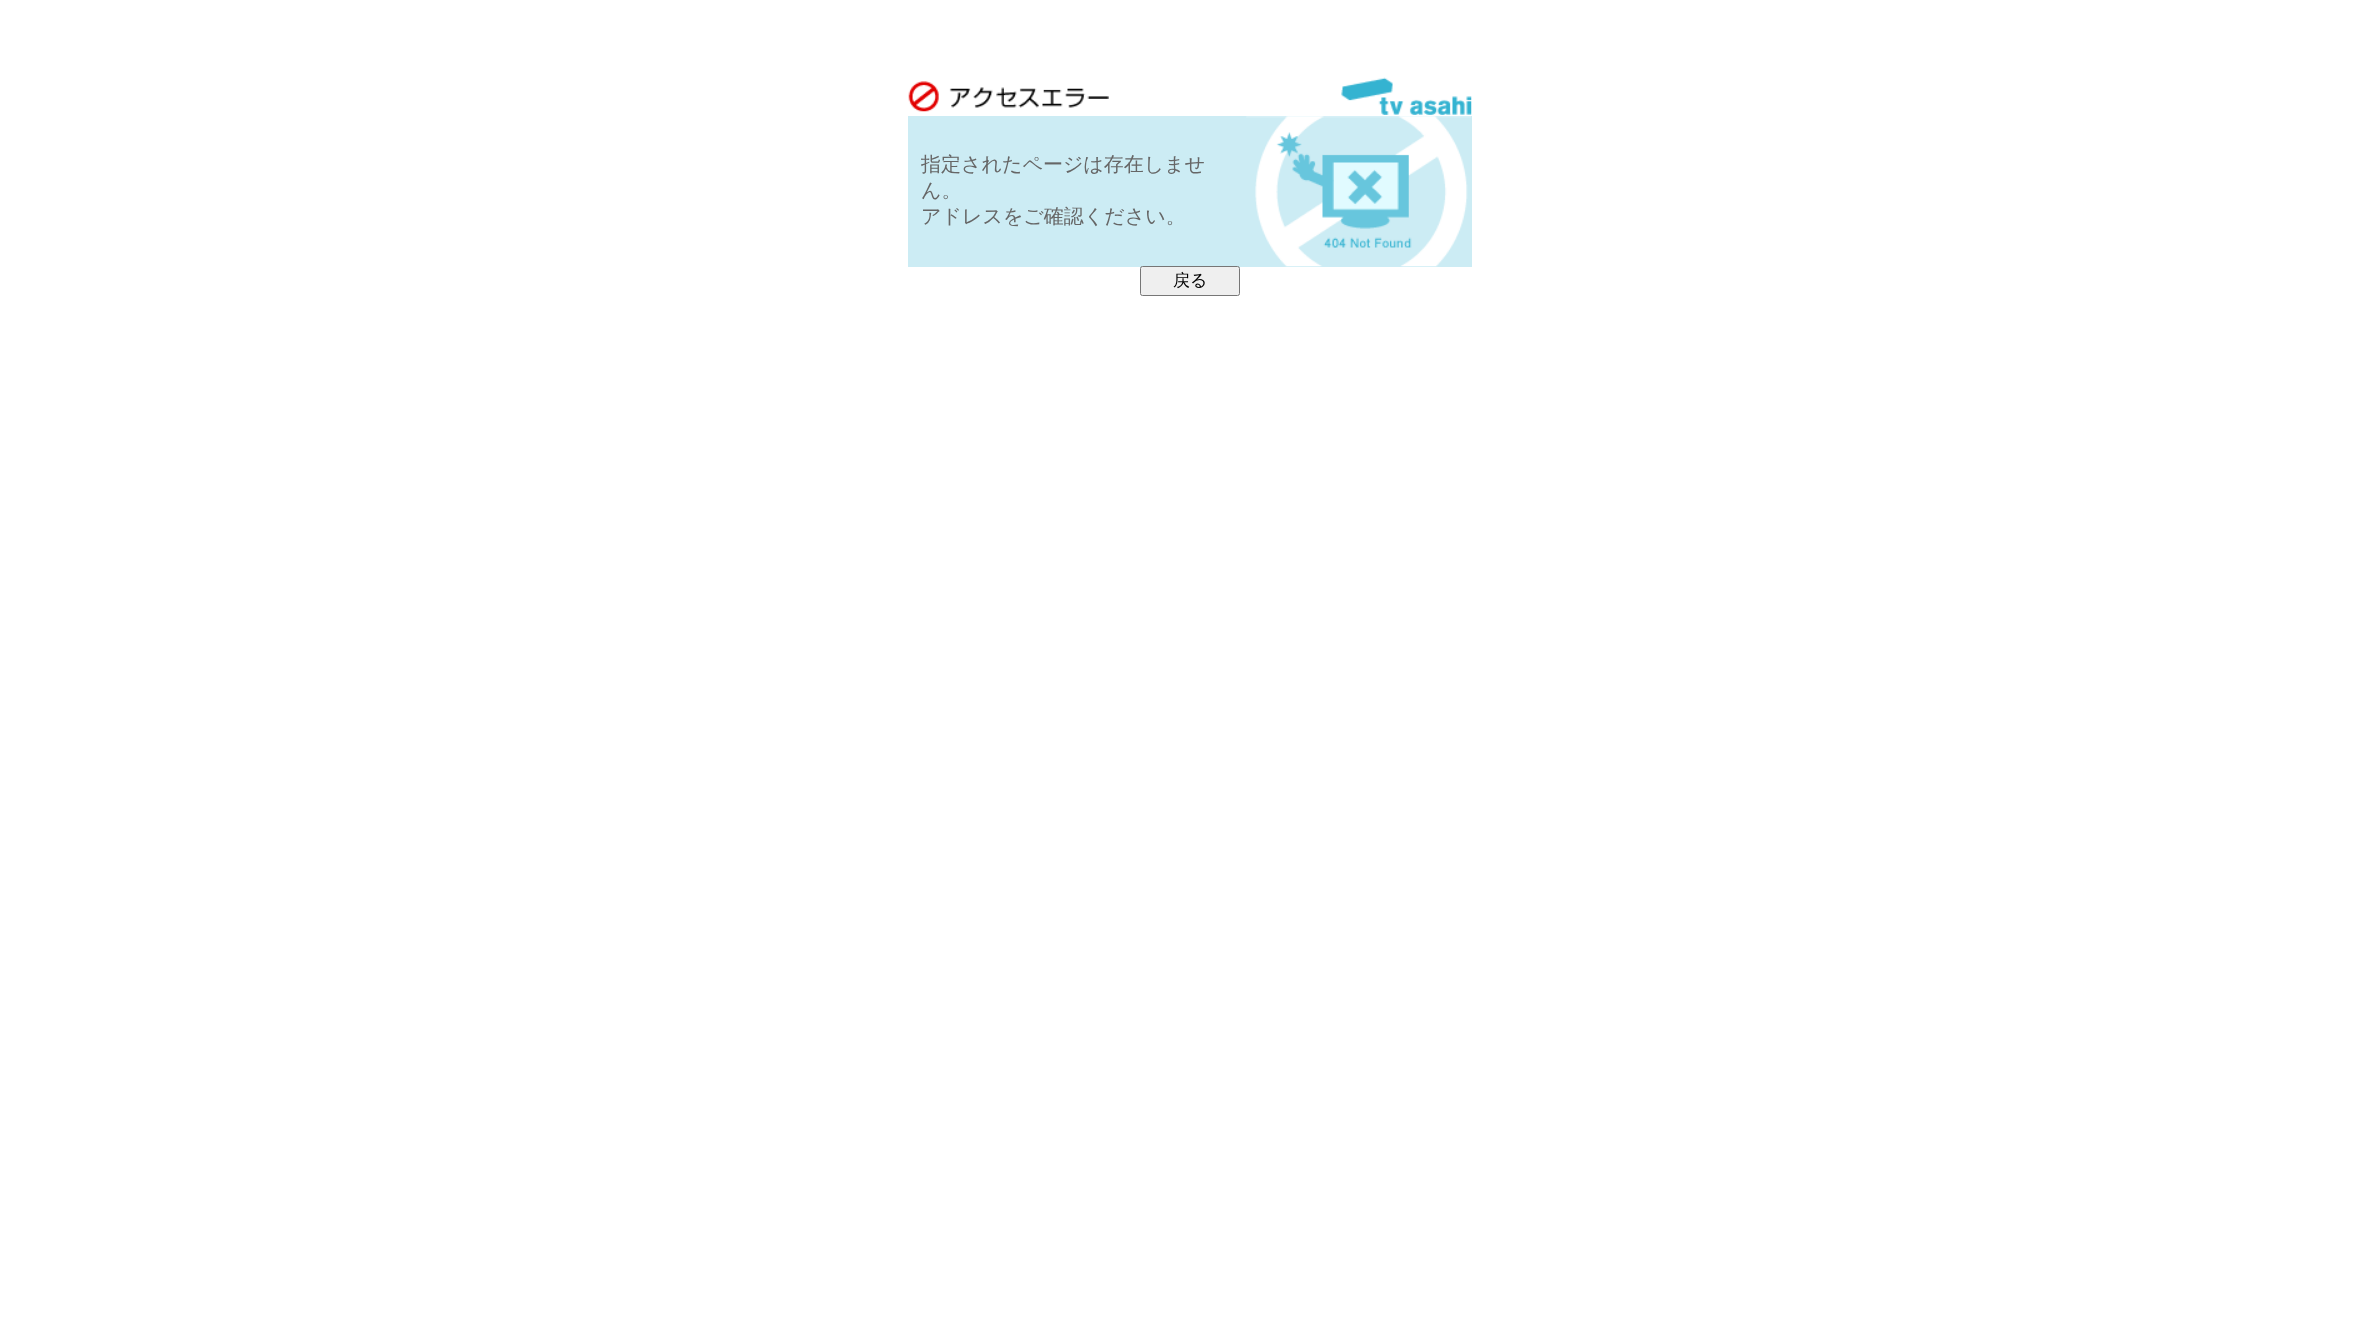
<svg xmlns="http://www.w3.org/2000/svg" xmlns:xlink="http://www.w3.org/1999/xlink" width="2379" height="1336" viewBox="0 0 2379 1336">
<style>
.cls-1{font:500 20px WenQuanYi Zen Hei;fill:#666666}
.cls-2{font:500 17px WenQuanYi Zen Hei;fill:#000000}
</style>
<rect width="100%" height="100%" fill="#ffffff"/>
<image xlink:href="image0.png" x="908" y="81" width="201" height="31"/>
<image xlink:href="image1.png" x="1341" y="77" width="131" height="38"/>
<rect fill="#ccecf4" x="908" y="116" width="564" height="151"/>
<image xlink:href="image2.png" x="1246" y="116" width="225" height="151"/>
<rect fill="#efefef" stroke="#767676" x="1140.5" y="266.5" width="99" height="29" rx="2"/>
<text class="cls-1"><tspan x="921" y="171">指定されたページは存在しませ</tspan><tspan x="921" y="197">ん。</tspan><tspan x="921" y="223">アドレスをご確認ください。</tspan></text>
<text class="cls-2" x="1173" y="286">戻る</text>
</svg>
